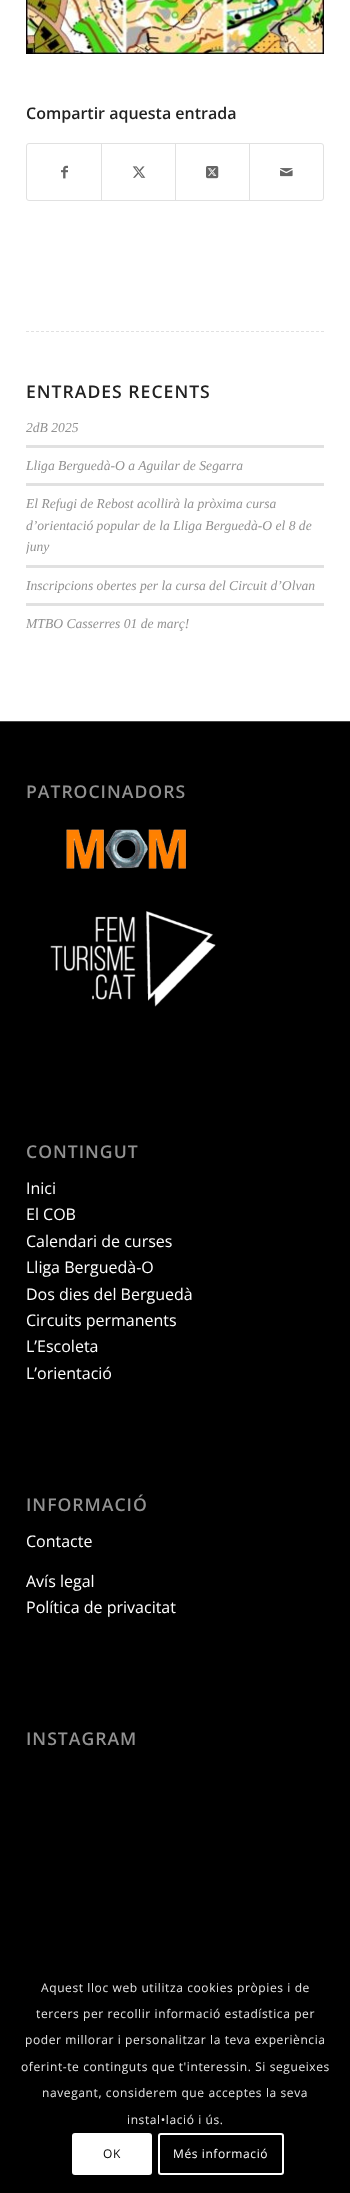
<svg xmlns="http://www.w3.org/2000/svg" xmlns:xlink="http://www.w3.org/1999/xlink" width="350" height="2193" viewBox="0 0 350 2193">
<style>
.cls-1{font:600 16px Open Sans;fill:#222222}
.cls-2{font:600 17.6px Open Sans;letter-spacing:1px;fill:#222222}
.cls-3{font:italic 13.6px Liberation Serif;fill:#919191}
.cls-4{font:600 17.6px Open Sans;letter-spacing:1px;fill:#919191}
.cls-5{font:16px Open Sans;fill:#ffffff}
.cls-6{font:12px Open Sans;letter-spacing:0.6px;fill:#e6e6e6}
.cls-7{font:12px Open Sans;letter-spacing:0.6px;fill:#000000}
.cls-8{font:12px Open Sans;letter-spacing:0.6px;fill:#ffffff}
</style>
<defs>
<clipPath id="clip1"><rect x="26" y="332" width="298" height="389"/></clipPath>
</defs>
<rect width="100%" height="100%" fill="#ffffff"/>
<image xlink:href="image0.png" x="26" y="0" width="298" height="54"/>
<rect fill="none" stroke="#e1e1e1" x="26.5" y="143.5" width="297" height="57" rx="2.5"/>
<image xlink:href="image1.png" x="61" y="165" width="7" height="14"/>
<rect fill="#e1e1e1" x="101" y="144" width="1" height="56"/>
<image xlink:href="image2.png" x="132" y="166" width="14" height="12"/>
<rect fill="#e1e1e1" x="175" y="144" width="1" height="56"/>
<image xlink:href="image3.png" x="206" y="166" width="13" height="13"/>
<rect fill="#e1e1e1" x="249" y="144" width="1" height="56"/>
<image xlink:href="image4.png" x="280" y="168" width="13" height="9"/>
<path fill="none" stroke="#e1e1e1" stroke-dasharray="3 2" d="M26 331.5H324"/>
<rect fill="#e1e1e1" x="26" y="445" width="298" height="3"/>
<rect fill="#e1e1e1" x="26" y="483" width="298" height="3"/>
<rect fill="#e1e1e1" x="26" y="565" width="298" height="3"/>
<rect fill="#e1e1e1" x="26" y="603" width="298" height="3"/>
<rect fill="#000000" x="0" y="722" width="350" height="1471"/>
<rect fill="#444444" x="0" y="721" width="350" height="1"/>
<image xlink:href="image5.png" x="66" y="829" width="120" height="40"/>
<image xlink:href="image6.png" x="50" y="911" width="166" height="96"/>
<rect fill="#ffffff" x="72" y="2133" width="80" height="42" rx="3"/>
<rect fill="none" stroke="#ffffff" stroke-width="2" x="159" y="2134" width="124" height="40" rx="2"/>
<text class="cls-1" x="26" y="119">Compartir aquesta entrada</text>
<text class="cls-2" x="26" y="398">ENTRADES RECENTS</text>
<text class="cls-3" x="26" y="432">2dB 2025</text>
<text class="cls-3" x="26" y="470">Lliga Berguedà-O a Aguilar de Segarra</text>
<text class="cls-3"><tspan x="26" y="508">El Refugi de Rebost acollirà la pròxima cursa</tspan><tspan x="26" y="530">d’orientació popular de la Lliga Berguedà-O el 8 de</tspan></text>
<g clip-path="url(#clip1)">
<text class="cls-3" x="26" y="551">juny</text>
</g>
<text class="cls-3" x="26" y="590">Inscripcions obertes per la cursa del Circuit d’Olvan</text>
<text class="cls-3" x="26" y="628">MTBO Casserres 01 de març!</text>
<text class="cls-4" x="26" y="798">PATROCINADORS</text>
<text class="cls-4" x="26" y="1158">CONTINGUT</text>
<text class="cls-5"><tspan x="26" y="1194">Inici</tspan><tspan x="26" y="1220">El COB</tspan><tspan x="26" y="1247">Calendari de curses</tspan><tspan x="26" y="1273">Lliga Berguedà-O</tspan><tspan x="26" y="1300">Dos dies del Berguedà</tspan><tspan x="26" y="1326">Circuits permanents</tspan><tspan x="26" y="1352">L’Escoleta</tspan><tspan x="26" y="1379">L’orientació</tspan></text>
<text class="cls-4" x="26" y="1511">INFORMACIÓ</text>
<text class="cls-5" x="26" y="1547">Contacte</text>
<text class="cls-5"><tspan x="26" y="1587">Avís legal</tspan><tspan x="26" y="1613">Política de privacitat</tspan></text>
<text class="cls-4" x="26" y="1745">INSTAGRAM</text>
<text class="cls-6" x="41" y="1992">Aquest lloc web utilitza cookies pròpies i de</text>
<text class="cls-6" x="36" y="2018">tercers per recollir informació estadística per</text>
<text class="cls-6" x="25" y="2044">poder millorar i personalitzar la teva experiència</text>
<text class="cls-6" x="21" y="2071">oferint-te continguts que t'interessin. Si segueixes</text>
<text class="cls-6" x="42" y="2097">navegant, considerem que acceptes la seva</text>
<text class="cls-6" x="127" y="2124">instal•lació i ús.</text>
<text class="cls-7" x="103" y="2158">OK</text>
<text class="cls-8" x="173" y="2158">Més informació</text>
</svg>
